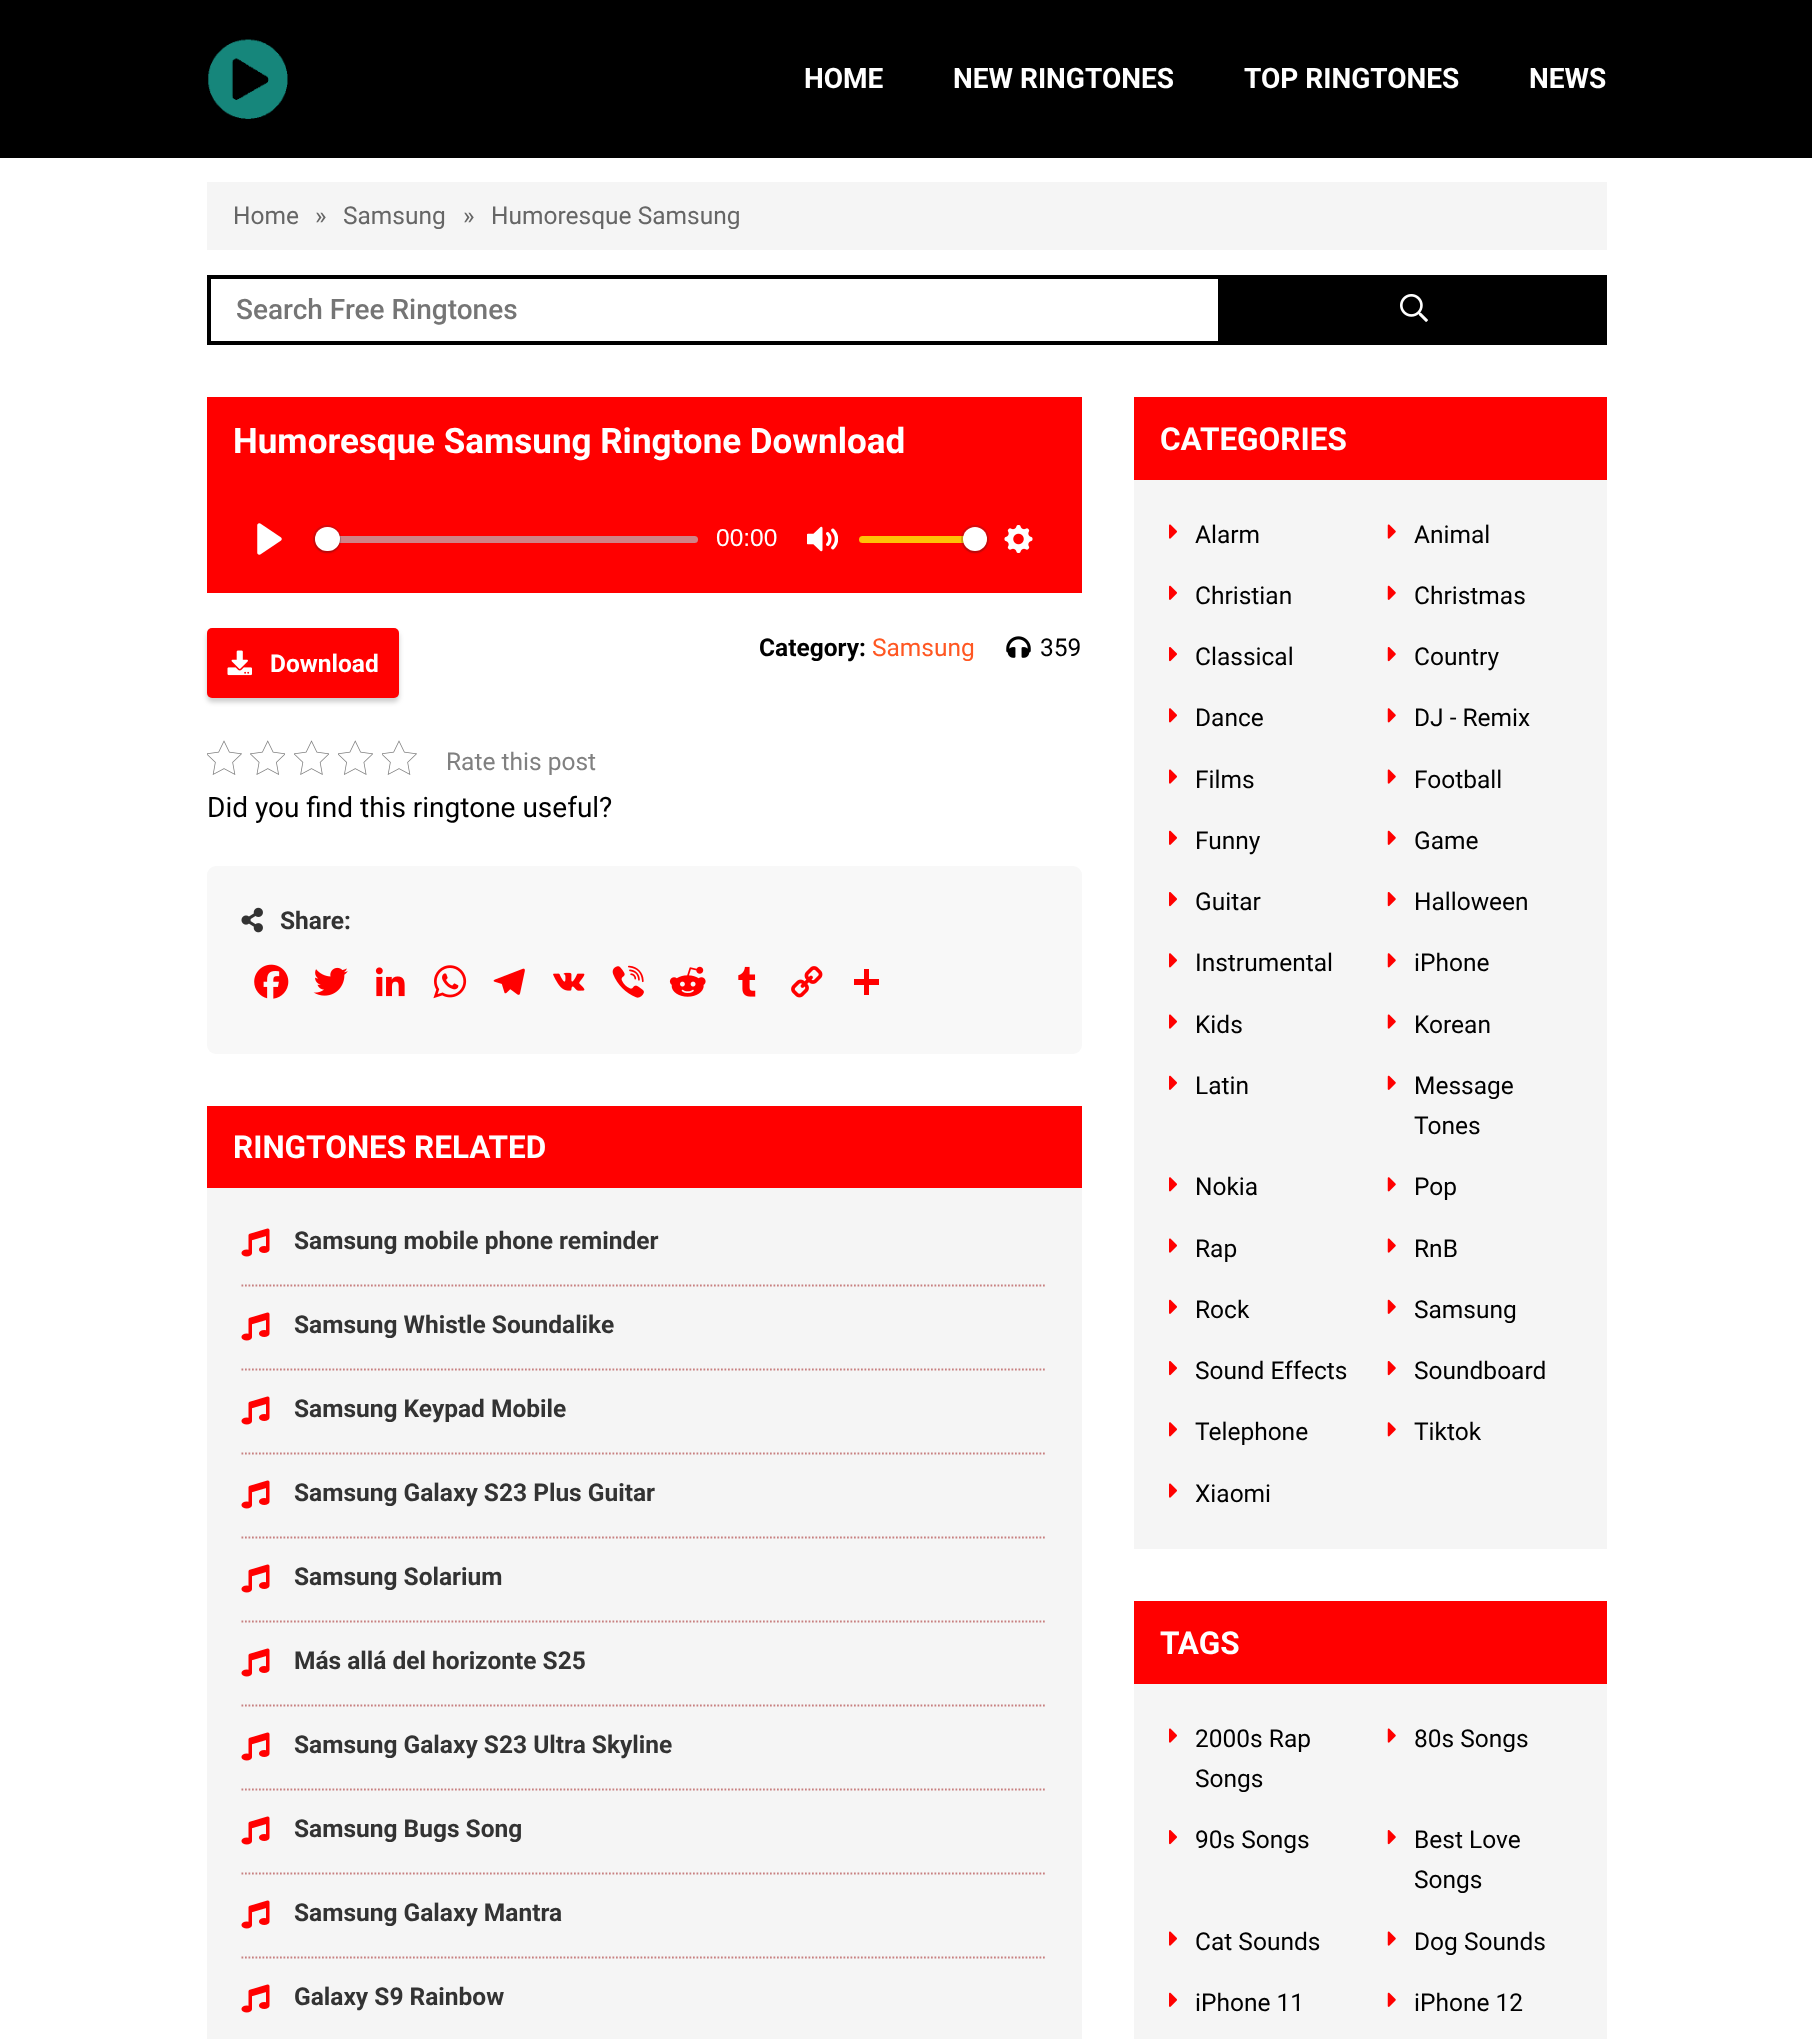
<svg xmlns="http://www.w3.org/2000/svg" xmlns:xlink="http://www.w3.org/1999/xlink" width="1812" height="2039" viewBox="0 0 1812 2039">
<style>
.cls-1{font:bold 28px Roboto;fill:#ffffff}
.cls-2{font:24.5px Roboto;fill:#666666}
.cls-3{font:500 28px Roboto;fill:#757575}
.cls-4{font:bold 35px Roboto;fill:#ffffff}
.cls-5{font:24.5px Liberation Sans;fill:#ffffff}
.cls-6{font:bold 24.5px Roboto;fill:#ffffff}
.cls-7{font:bold 24.5px Roboto;fill:#000000}
.cls-8{font:24.5px Roboto;fill:#ff5722}
.cls-9{font:24.5px Roboto;fill:#000000}
.cls-10{font:24.5px Roboto;fill:#808080}
.cls-11{font:28px Roboto;fill:#000000}
.cls-12{font:bold 24.5px Roboto;fill:#333333}
.cls-13{font:bold 31.5px Roboto;fill:#ffffff}
</style>
<rect width="100%" height="100%" fill="#ffffff"/>
<rect fill="#000000" x="0" y="0" width="1812" height="158"/>
<image xlink:href="image0.png" x="208" y="39" width="80" height="80"/>
<rect fill="#f5f5f5" x="207" y="182" width="1400" height="68"/>
<rect fill="none" stroke="#000000" stroke-width="4" x="209" y="277" width="1011" height="66"/>
<rect fill="#000000" x="1222" y="275" width="385" height="70"/>
<image xlink:href="image1.png" x="1400" y="294" width="28" height="28"/>
<rect fill="#ff0000" x="207" y="397" width="875" height="196"/>
<image xlink:href="image2.png" x="257" y="523" width="25" height="32"/>
<rect fill="#b7c5cd" fill-opacity="0.66" x="315" y="536" width="383" height="7" rx="3.5"/>
<circle fill="none" stroke="#2f343d" stroke-opacity="0.2" stroke-width="2" cx="327" cy="539" r="13"/>
<rect fill="#000000" fill-opacity="0.15" filter="blur(1px)" x="315" y="529" width="25" height="24" rx="12"/>
<rect fill="#ffffff" x="315" y="527" width="25" height="24" rx="12"/>
<image xlink:href="image3.png" x="807" y="526" width="31" height="26"/>
<rect fill="#ffc107" x="859" y="536" width="128" height="7" rx="3.5"/>
<circle fill="none" stroke="#2f343d" stroke-opacity="0.2" stroke-width="2" cx="975" cy="539" r="13"/>
<rect fill="#000000" fill-opacity="0.15" filter="blur(1px)" x="963" y="529" width="24" height="24" rx="12"/>
<circle fill="#ffffff" cx="975" cy="539" r="12"/>
<image xlink:href="image4.png" x="1004" y="525" width="29" height="28"/>
<rect fill="#000000" fill-opacity="0.2" filter="blur(2.5px)" x="207" y="632" width="192" height="70" rx="5"/>
<rect fill="#ff0000" x="207" y="628" width="192" height="70" rx="5"/>
<image xlink:href="image5.png" x="227" y="650" width="25" height="26"/>
<image xlink:href="image6.png" x="1006" y="636" width="25" height="22"/>
<image xlink:href="image7.png" x="207" y="740" width="35" height="35"/>
<image xlink:href="image8.png" x="250" y="740" width="35" height="35"/>
<image xlink:href="image9.png" x="294" y="740" width="35" height="35"/>
<image xlink:href="image10.png" x="338" y="740" width="35" height="35"/>
<image xlink:href="image7.png" x="382" y="740" width="35" height="35"/>
<rect fill="#f8f8f8" x="207" y="866" width="875" height="188" rx="9"/>
<image xlink:href="image11.png" x="241" y="907" width="22" height="26"/>
<image xlink:href="image12.png" x="254" y="964" width="35" height="35"/>
<image xlink:href="image13.png" x="313" y="967" width="35" height="29"/>
<image xlink:href="image14.png" x="375" y="967" width="30" height="30"/>
<image xlink:href="image15.png" x="433" y="965" width="34" height="34"/>
<image xlink:href="image16.png" x="493" y="968" width="32" height="27"/>
<image xlink:href="image17.png" x="553" y="972" width="32" height="19"/>
<image xlink:href="image18.png" x="612" y="965" width="32" height="33"/>
<image xlink:href="image19.png" x="669" y="966" width="37" height="31"/>
<image xlink:href="image20.png" x="738" y="966" width="18" height="31"/>
<image xlink:href="image21.png" x="791" y="966" width="32" height="32"/>
<rect fill="#ff0000" x="864" y="969" width="5" height="26"/>
<rect fill="#ff0000" x="854" y="979" width="25" height="6"/>
<rect fill="#f5f5f5" x="207" y="1188" width="875" height="851"/>
<rect fill="#ff0000" x="207" y="1106" width="875" height="82"/>
<image xlink:href="image22.png" x="241" y="1228" width="29" height="29"/>
<path fill="none" stroke="#c78080" stroke-width="1.8" stroke-dasharray="1.75 1.75" d="M241.5 1285.5H1046.5"/>
<image xlink:href="image22.png" x="241" y="1312" width="29" height="29"/>
<path fill="none" stroke="#c78080" stroke-width="1.8" stroke-dasharray="1.75 1.75" d="M241.5 1369.5H1046.5"/>
<image xlink:href="image22.png" x="241" y="1396" width="29" height="29"/>
<path fill="none" stroke="#c78080" stroke-width="1.8" stroke-dasharray="1.75 1.75" d="M241.5 1453.5H1046.5"/>
<image xlink:href="image22.png" x="241" y="1480" width="29" height="29"/>
<path fill="none" stroke="#c78080" stroke-width="1.8" stroke-dasharray="1.75 1.75" d="M241.5 1537.5H1046.5"/>
<image xlink:href="image22.png" x="241" y="1564" width="29" height="29"/>
<path fill="none" stroke="#c78080" stroke-width="1.8" stroke-dasharray="1.75 1.75" d="M241.5 1621.5H1046.5"/>
<image xlink:href="image22.png" x="241" y="1648" width="29" height="29"/>
<path fill="none" stroke="#c78080" stroke-width="1.8" stroke-dasharray="1.75 1.75" d="M241.5 1705.5H1046.5"/>
<image xlink:href="image22.png" x="241" y="1732" width="29" height="29"/>
<path fill="none" stroke="#c78080" stroke-width="1.8" stroke-dasharray="1.75 1.75" d="M241.5 1789.5H1046.5"/>
<image xlink:href="image22.png" x="241" y="1816" width="29" height="29"/>
<path fill="none" stroke="#c78080" stroke-width="1.8" stroke-dasharray="1.75 1.75" d="M241.5 1873.5H1046.5"/>
<image xlink:href="image22.png" x="241" y="1900" width="29" height="29"/>
<path fill="none" stroke="#c78080" stroke-width="1.8" stroke-dasharray="1.75 1.75" d="M241.5 1957.5H1046.5"/>
<image xlink:href="image22.png" x="241" y="1984" width="29" height="29"/>
<rect fill="#ff0000" x="1134" y="397" width="473" height="83"/>
<rect fill="#f5f5f5" x="1134" y="480" width="473" height="1069"/>
<image xlink:href="image23.png" x="1169" y="524" width="8" height="15"/>
<image xlink:href="image24.png" x="1387" y="524" width="9" height="15"/>
<image xlink:href="image25.png" x="1169" y="585" width="8" height="15"/>
<image xlink:href="image26.png" x="1387" y="585" width="9" height="15"/>
<image xlink:href="image27.png" x="1169" y="647" width="8" height="15"/>
<image xlink:href="image28.png" x="1387" y="647" width="9" height="15"/>
<image xlink:href="image29.png" x="1169" y="708" width="8" height="15"/>
<image xlink:href="image30.png" x="1387" y="708" width="9" height="15"/>
<image xlink:href="image23.png" x="1169" y="769" width="8" height="15"/>
<image xlink:href="image24.png" x="1387" y="769" width="9" height="15"/>
<image xlink:href="image25.png" x="1169" y="830" width="8" height="15"/>
<image xlink:href="image26.png" x="1387" y="830" width="9" height="15"/>
<image xlink:href="image27.png" x="1169" y="892" width="8" height="15"/>
<image xlink:href="image28.png" x="1387" y="892" width="9" height="15"/>
<image xlink:href="image29.png" x="1169" y="953" width="8" height="15"/>
<image xlink:href="image30.png" x="1387" y="953" width="9" height="15"/>
<image xlink:href="image23.png" x="1169" y="1014" width="8" height="15"/>
<image xlink:href="image24.png" x="1387" y="1014" width="9" height="15"/>
<image xlink:href="image25.png" x="1169" y="1075" width="8" height="15"/>
<image xlink:href="image26.png" x="1387" y="1075" width="9" height="15"/>
<image xlink:href="image29.png" x="1169" y="1177" width="8" height="15"/>
<image xlink:href="image30.png" x="1387" y="1177" width="9" height="15"/>
<image xlink:href="image23.png" x="1169" y="1238" width="8" height="15"/>
<image xlink:href="image24.png" x="1387" y="1238" width="9" height="15"/>
<image xlink:href="image25.png" x="1169" y="1299" width="8" height="15"/>
<image xlink:href="image26.png" x="1387" y="1299" width="9" height="15"/>
<image xlink:href="image27.png" x="1169" y="1361" width="8" height="15"/>
<image xlink:href="image28.png" x="1387" y="1361" width="9" height="15"/>
<image xlink:href="image29.png" x="1169" y="1422" width="8" height="15"/>
<image xlink:href="image30.png" x="1387" y="1422" width="9" height="15"/>
<image xlink:href="image23.png" x="1169" y="1483" width="8" height="15"/>
<rect fill="#ff0000" x="1134" y="1601" width="473" height="83"/>
<rect fill="#f5f5f5" x="1134" y="1684" width="473" height="355"/>
<image xlink:href="image23.png" x="1169" y="1728" width="8" height="15"/>
<image xlink:href="image24.png" x="1387" y="1728" width="9" height="15"/>
<image xlink:href="image27.png" x="1169" y="1830" width="8" height="15"/>
<image xlink:href="image28.png" x="1387" y="1830" width="9" height="15"/>
<image xlink:href="image23.png" x="1169" y="1931" width="8" height="15"/>
<image xlink:href="image24.png" x="1387" y="1931" width="9" height="15"/>
<image xlink:href="image25.png" x="1169" y="1992" width="8" height="15"/>
<image xlink:href="image26.png" x="1387" y="1992" width="9" height="15"/>
<text class="cls-1" x="804" y="88">HOME</text>
<text class="cls-1" x="953" y="88">NEW RINGTONES</text>
<text class="cls-1" x="1244" y="88">TOP RINGTONES</text>
<text class="cls-1" x="1529" y="88">NEWS</text>
<text class="cls-2" x="233" y="224">Home</text>
<text class="cls-2" x="315" y="224">»</text>
<text class="cls-2" x="343" y="224">Samsung</text>
<text class="cls-2" x="463" y="224">»</text>
<text class="cls-2" x="491" y="224">Humoresque Samsung</text>
<text class="cls-3" x="236" y="319">Search Free Ringtones</text>
<text class="cls-4" x="233" y="453">Humoresque Samsung Ringtone Download</text>
<text class="cls-5" x="716" y="546">00:00</text>
<text class="cls-6" x="270" y="672">Download</text>
<text class="cls-7" x="759" y="656">Category:</text>
<text class="cls-8" x="872" y="656">Samsung</text>
<text class="cls-9" x="1040" y="656">359</text>
<text class="cls-10" x="446" y="770">Rate this post</text>
<text class="cls-11" x="207" y="817">Did you find this ringtone useful?</text>
<text class="cls-12" x="280" y="929">Share:</text>
<text class="cls-13" x="233" y="1158">RINGTONES RELATED</text>
<text class="cls-12" x="294" y="1249">Samsung mobile phone reminder</text>
<text class="cls-12" x="294" y="1333">Samsung Whistle Soundalike</text>
<text class="cls-12" x="294" y="1417">Samsung Keypad Mobile</text>
<text class="cls-12" x="294" y="1501">Samsung Galaxy S23 Plus Guitar</text>
<text class="cls-12" x="294" y="1585">Samsung Solarium</text>
<text class="cls-12" x="294" y="1669">Más allá del horizonte S25</text>
<text class="cls-12" x="294" y="1753">Samsung Galaxy S23 Ultra Skyline</text>
<text class="cls-12" x="294" y="1837">Samsung Bugs Song</text>
<text class="cls-12" x="294" y="1921">Samsung Galaxy Mantra</text>
<text class="cls-12" x="294" y="2005">Galaxy S9 Rainbow</text>
<text class="cls-13" x="1160" y="450">CATEGORIES</text>
<text class="cls-9" x="1195" y="543">Alarm</text>
<text class="cls-9" x="1414" y="543">Animal</text>
<text class="cls-9" x="1195" y="604">Christian</text>
<text class="cls-9" x="1414" y="604">Christmas</text>
<text class="cls-9" x="1195" y="665">Classical</text>
<text class="cls-9" x="1414" y="665">Country</text>
<text class="cls-9" x="1195" y="726">Dance</text>
<text class="cls-9" x="1414" y="726">DJ - Remix</text>
<text class="cls-9" x="1195" y="788">Films</text>
<text class="cls-9" x="1414" y="788">Football</text>
<text class="cls-9" x="1195" y="849">Funny</text>
<text class="cls-9" x="1414" y="849">Game</text>
<text class="cls-9" x="1195" y="910">Guitar</text>
<text class="cls-9" x="1414" y="910">Halloween</text>
<text class="cls-9" x="1195" y="971">Instrumental</text>
<text class="cls-9" x="1414" y="971">iPhone</text>
<text class="cls-9" x="1195" y="1033">Kids</text>
<text class="cls-9" x="1414" y="1033">Korean</text>
<text class="cls-9" x="1195" y="1094">Latin</text>
<text class="cls-9"><tspan x="1414" y="1094">Message</tspan><tspan x="1414" y="1134">Tones</tspan></text>
<text class="cls-9" x="1195" y="1195">Nokia</text>
<text class="cls-9" x="1414" y="1195">Pop</text>
<text class="cls-9" x="1195" y="1257">Rap</text>
<text class="cls-9" x="1414" y="1257">RnB</text>
<text class="cls-9" x="1195" y="1318">Rock</text>
<text class="cls-9" x="1414" y="1318">Samsung</text>
<text class="cls-9" x="1195" y="1379">Sound Effects</text>
<text class="cls-9" x="1414" y="1379">Soundboard</text>
<text class="cls-9" x="1195" y="1440">Telephone</text>
<text class="cls-9" x="1414" y="1440">Tiktok</text>
<text class="cls-9" x="1195" y="1502">Xiaomi</text>
<text class="cls-13" x="1160" y="1654">TAGS</text>
<text class="cls-9"><tspan x="1195" y="1747">2000s Rap</tspan><tspan x="1195" y="1787">Songs</tspan></text>
<text class="cls-9" x="1414" y="1747">80s Songs</text>
<text class="cls-9" x="1195" y="1848">90s Songs</text>
<text class="cls-9"><tspan x="1414" y="1848">Best Love</tspan><tspan x="1414" y="1888">Songs</tspan></text>
<text class="cls-9" x="1195" y="1950">Cat Sounds</text>
<text class="cls-9" x="1414" y="1950">Dog Sounds</text>
<text class="cls-9" x="1195" y="2011">iPhone 11</text>
<text class="cls-9" x="1414" y="2011">iPhone 12</text>
</svg>
